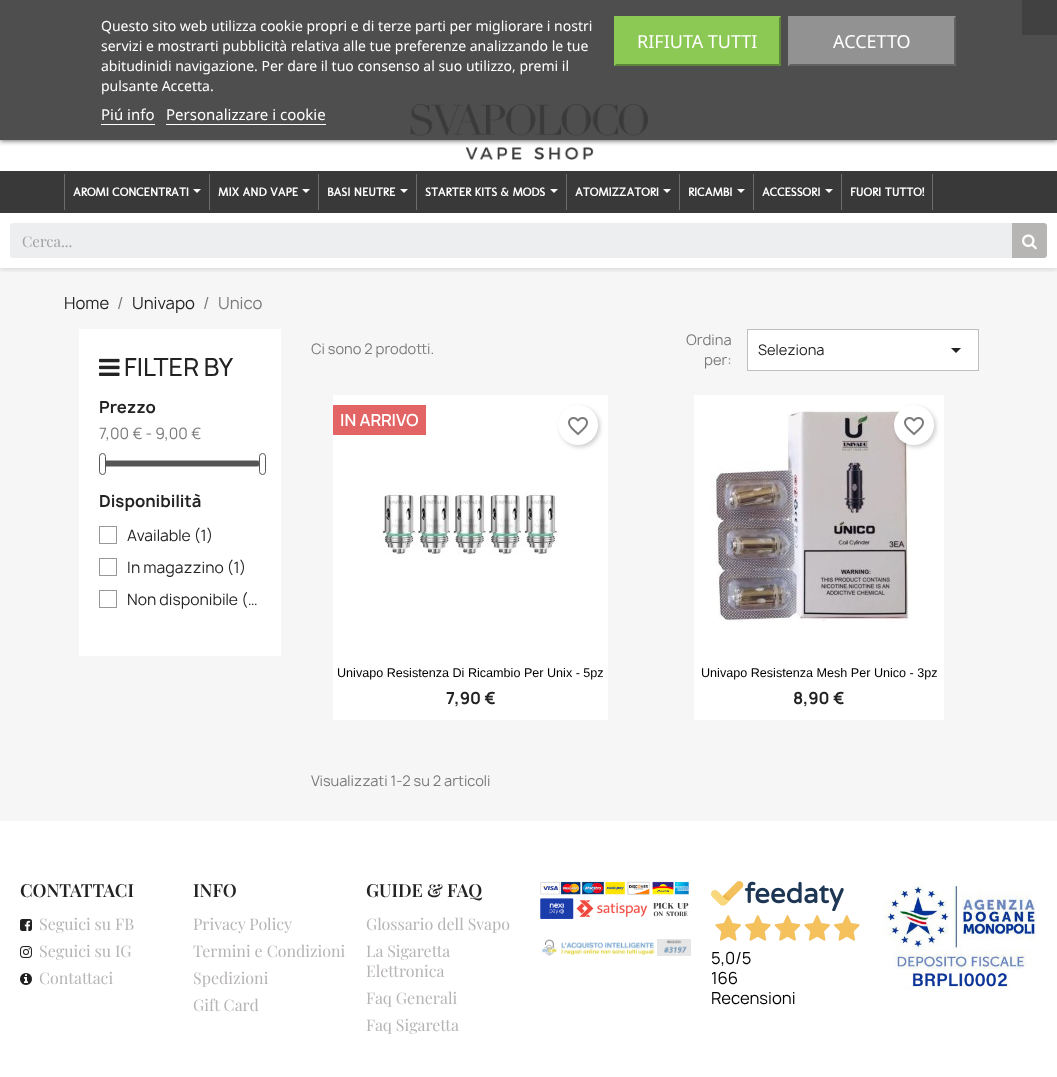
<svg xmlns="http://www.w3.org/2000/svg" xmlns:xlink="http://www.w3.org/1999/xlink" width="1057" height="1077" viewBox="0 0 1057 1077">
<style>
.cls-1{font:14px Noto Sans;fill:#ffffff}
.cls-2{font:15px Noto Sans;fill:#ffffff}
.cls-3{font:18px Noto Sans;fill:#ffffff}
.cls-4{font:600 18px Playfair Display;fill:#232323}
.cls-5{font:16px Playfair Display;fill:#b7b4b4}
.cls-6{font:16px Manrope;fill:#000000}
.cls-7{font:bold 12px Molengo;fill:#ffffff}
.cls-8{font:15px Playfair Display;fill:#a2a2a3}
.cls-9{font:16px Manrope;fill:#232323}
.cls-10{font:16px Manrope;fill:#7a7a7a}
.cls-11{font:500 24px Manrope;fill:#232323}
.cls-12{font:bold 16px Manrope;fill:#232323}
.cls-13{font:15px Manrope;fill:#7a7a7a}
.cls-14{font:15px Manrope;fill:#232323}
.cls-15{font:14px Manrope;fill:#7a7a7a}
.cls-16{font:14px Manrope;fill:#232323}
.cls-17{font:600 16px Manrope;fill:#ffffff}
.cls-18{font:12.6px Liberation Sans;fill:#000000}
</style>
<defs>
<clipPath id="clip1"><rect x="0" y="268" width="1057" height="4"/></clipPath>
<clipPath id="clip2"><rect x="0" y="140" width="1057" height="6"/></clipPath>
</defs>
<rect width="100%" height="100%" fill="#ffffff"/>
<rect fill="#f6f6f6" x="0" y="268" width="1057" height="553"/>
<g clip-path="url(#clip1)">
<rect fill="#000000" fill-opacity="0.11" filter="blur(2.5px)" x="0" y="2" width="1057" height="268"/>
</g>
<image xlink:href="image8.png" x="410" y="103" width="238" height="57"/>
<g clip-path="url(#clip2)">
<rect fill="#707070" filter="blur(2.5px)" x="0" y="1" width="1057" height="140"/>
</g>
<rect fill="#3b3b3b" fill-opacity="0.9" x="0" y="0" width="1057" height="140"/>
<rect fill="#ffffff" x="101" y="124" width="54" height="1"/>
<rect fill="#ffffff" x="166" y="124" width="160" height="1"/>
<rect fill="#8bc954" x="614" y="16" width="167" height="50"/>
<path fill="#5d8638" d="M781 16V66L779 64V18Z"/>
<path fill="#5d8638" d="M781 66H614L616 64H779Z"/>
<path fill="#8bc954" d="M614 66V16L616 18V64Z"/>
<rect fill="#929292" x="788" y="16" width="168" height="50"/>
<path fill="#616161" d="M956 16V66L954 64V18Z"/>
<path fill="#616161" d="M956 66H788L790 64H954Z"/>
<path fill="#929292" d="M788 66V16L790 18V64Z"/>
<rect fill="#414141" x="1022" y="0" width="35" height="35"/>
<image xlink:href="image0.png" x="20" y="919" width="12" height="12"/>
<image xlink:href="image1.png" x="20" y="946" width="12" height="12"/>
<image xlink:href="image2.png" x="20" y="973" width="12" height="12"/>
<image xlink:href="image3.png" x="540" y="881" width="149" height="38"/>
<image xlink:href="image4.png" x="541" y="939" width="150" height="17"/>
<image xlink:href="image5.png" x="711" y="881" width="133" height="30"/>
<image xlink:href="image6.png" x="715" y="915" width="145" height="26"/>
<image xlink:href="image7.png" x="884" y="881" width="153" height="108"/>
<rect fill="#383938" x="0" y="171" width="1057" height="42"/>
<rect fill="#6c6c6c" x="209" y="174" width="1" height="36"/>
<rect fill="#6c6c6c" x="64" y="174" width="1" height="36"/>
<path fill="#ffffff" d="M193 189H201L197 193Z"/>
<rect fill="#6c6c6c" x="318" y="174" width="1" height="36"/>
<path fill="#ffffff" d="M302 189H310L306 193Z"/>
<rect fill="#6c6c6c" x="416" y="174" width="1" height="36"/>
<path fill="#ffffff" d="M400 189H408L404 193Z"/>
<rect fill="#6c6c6c" x="566" y="174" width="1" height="36"/>
<path fill="#ffffff" d="M550 189H558L554 193Z"/>
<rect fill="#6c6c6c" x="679" y="174" width="1" height="36"/>
<path fill="#ffffff" d="M663 189H671L667 193Z"/>
<rect fill="#6c6c6c" x="753" y="174" width="1" height="36"/>
<path fill="#ffffff" d="M737 189H745L741 193Z"/>
<rect fill="#6c6c6c" x="841" y="174" width="1" height="36"/>
<path fill="#ffffff" d="M825 189H833L829 193Z"/>
<rect fill="#6c6c6c" x="932" y="174" width="1" height="36"/>
<rect fill="#eceeef" x="10" y="223" width="1037" height="35" rx="3"/>
<path fill="#b7b4b4" d="M1012 223H1044C1045.5 223 1047 224.5 1047 226V255C1047 256.5 1045.5 258 1044 258H1012Z"/>
<image xlink:href="image9.png" x="1022" y="234" width="15" height="16"/>
<rect fill="#ffffff" x="79" y="329" width="202" height="327"/>
<image xlink:href="image10.png" x="99" y="358" width="21" height="18"/>
<rect fill="none" stroke="#aaaaaa" x="99.5" y="460.5" width="161" height="6" rx="3"/>
<rect fill="#555555" x="100" y="461" width="160" height="5" rx="2.5"/>
<rect fill="#ffffff" stroke="#555555" x="99.5" y="453.5" width="6" height="21" rx="3"/>
<rect fill="#ffffff" stroke="#555555" x="259.5" y="453.5" width="6" height="21" rx="3"/>
<rect fill="none" stroke="#979797" x="99.5" y="526.5" width="17" height="17"/>
<rect fill="none" stroke="#979797" x="99.5" y="558.5" width="17" height="17"/>
<rect fill="none" stroke="#979797" x="99.5" y="590.5" width="17" height="17"/>
<rect fill="#ffffff" stroke="#bfbfbf" x="747.5" y="329.5" width="231" height="41"/>
<path fill="#232323" d="M951 348H961L956 353Z"/>
<rect fill="#ffffff" x="333" y="395" width="275" height="325"/>
<rect fill="#e36464" x="333" y="405" width="93" height="30"/>
<rect fill="#000000" fill-opacity="0.2" filter="blur(2px)" x="560" y="407" width="40" height="40" rx="20"/>
<circle fill="#ffffff" cx="578" cy="425" r="20"/>
<image xlink:href="image11.png" x="568" y="417" width="20" height="19"/>
<image xlink:href="image12.png" x="378" y="491" width="183" height="64"/>
<rect fill="#ffffff" x="694" y="395" width="250" height="325"/>
<image xlink:href="image13.png" x="710" y="411" width="200" height="215"/>
<rect fill="#000000" fill-opacity="0.2" filter="blur(2px)" x="896" y="407" width="40" height="40" rx="20"/>
<circle fill="#ffffff" cx="914" cy="425" r="20"/>
<image xlink:href="image11.png" x="904" y="417" width="20" height="19"/>
<text class="cls-1"><tspan x="101" y="31">Questo sito web utilizza cookie propri e di terze parti per migliorare i nostri</tspan><tspan x="101" y="51">servizi e mostrarti pubblicità relativa alle tue preferenze analizzando le tue</tspan><tspan x="101" y="71">abitudinidi navigazione. Per dare il tuo consenso al suo utilizzo, premi il</tspan><tspan x="101" y="91">pulsante Accetta.</tspan></text>
<text class="cls-2" x="101" y="120">Piú info</text>
<text class="cls-2" x="166" y="120">Personalizzare i cookie</text>
<text class="cls-3" x="637" y="48">RIFIUTA TUTTI</text>
<text class="cls-3" x="833" y="48">ACCETTO</text>
<text class="cls-4" x="20" y="897">CONTATTACI</text>
<text class="cls-5"><tspan x="39" y="930">Seguici su FB</tspan><tspan x="39" y="957">Seguici su IG</tspan><tspan x="39" y="984">Contattaci</tspan></text>
<text class="cls-4" x="193" y="897">INFO</text>
<text class="cls-5"><tspan x="193" y="930">Privacy Policy</tspan><tspan x="193" y="957">Termini e Condizioni</tspan><tspan x="193" y="984">Spedizioni</tspan><tspan x="193" y="1011">Gift Card</tspan></text>
<text class="cls-4" x="366" y="897">GUIDE &amp; FAQ</text>
<text class="cls-5"><tspan x="366" y="930">Glossario dell Svapo</tspan><tspan x="366" y="957">La Sigaretta</tspan><tspan x="366" y="977">Elettronica</tspan><tspan x="366" y="1004">Faq Generali</tspan><tspan x="366" y="1031">Faq Sigaretta</tspan></text>
<text class="cls-6"><tspan x="711" y="964">5,0/5</tspan><tspan x="711" y="984">166</tspan><tspan x="711" y="1004">Recensioni</tspan></text>
<text class="cls-7" x="73" y="196">AROMI CONCENTRATI</text>
<text class="cls-7" x="218" y="196">MIX AND VAPE</text>
<text class="cls-7" x="327" y="196">BASI NEUTRE</text>
<text class="cls-7" x="425" y="196">STARTER KITS &amp; MODS</text>
<text class="cls-7" x="575" y="196">ATOMIZZATORI</text>
<text class="cls-7" x="688" y="196">RICAMBI</text>
<text class="cls-7" x="762" y="196">ACCESSORI</text>
<text class="cls-7" x="850" y="196">FUORI TUTTO!</text>
<text class="cls-8" x="22" y="247">Cerca...</text>
<text class="cls-9" x="64" y="309">Home</text>
<text class="cls-10" x="117" y="309">/</text>
<text class="cls-9" x="132" y="309">Univapo</text>
<text class="cls-10" x="203" y="309">/</text>
<text class="cls-10" x="218" y="309">Unico</text>
<text class="cls-11" x="124" y="376">FILTER BY</text>
<text class="cls-12" x="99" y="413">Prezzo</text>
<text class="cls-13" x="99" y="439">7,00 € - 9,00 €</text>
<text class="cls-12" x="99" y="507">Disponibilità</text>
<text class="cls-14" x="127" y="541">Available (1)</text>
<text class="cls-14" x="127" y="573">In magazzino (1)</text>
<text class="cls-14" x="127" y="605">Non disponibile (…</text>
<text class="cls-15" x="311" y="354">Ci sono 2 prodotti.</text>
<text class="cls-15" x="686" y="345">Ordina</text>
<text class="cls-15" x="704" y="365">per:</text>
<text class="cls-16" x="758" y="355">Seleziona</text>
<text class="cls-17" x="340" y="426">IN ARRIVO</text>
<text class="cls-18" x="337" y="677">Univapo Resistenza Di Ricambio Per Unix - 5pz</text>
<text class="cls-12" x="446" y="704">7,90 €</text>
<text class="cls-18" x="701" y="677">Univapo Resistenza Mesh Per Unico - 3pz</text>
<text class="cls-12" x="793" y="704">8,90 €</text>
<text class="cls-15" x="311" y="786">Visualizzati 1-2 su 2 articoli</text>
</svg>
